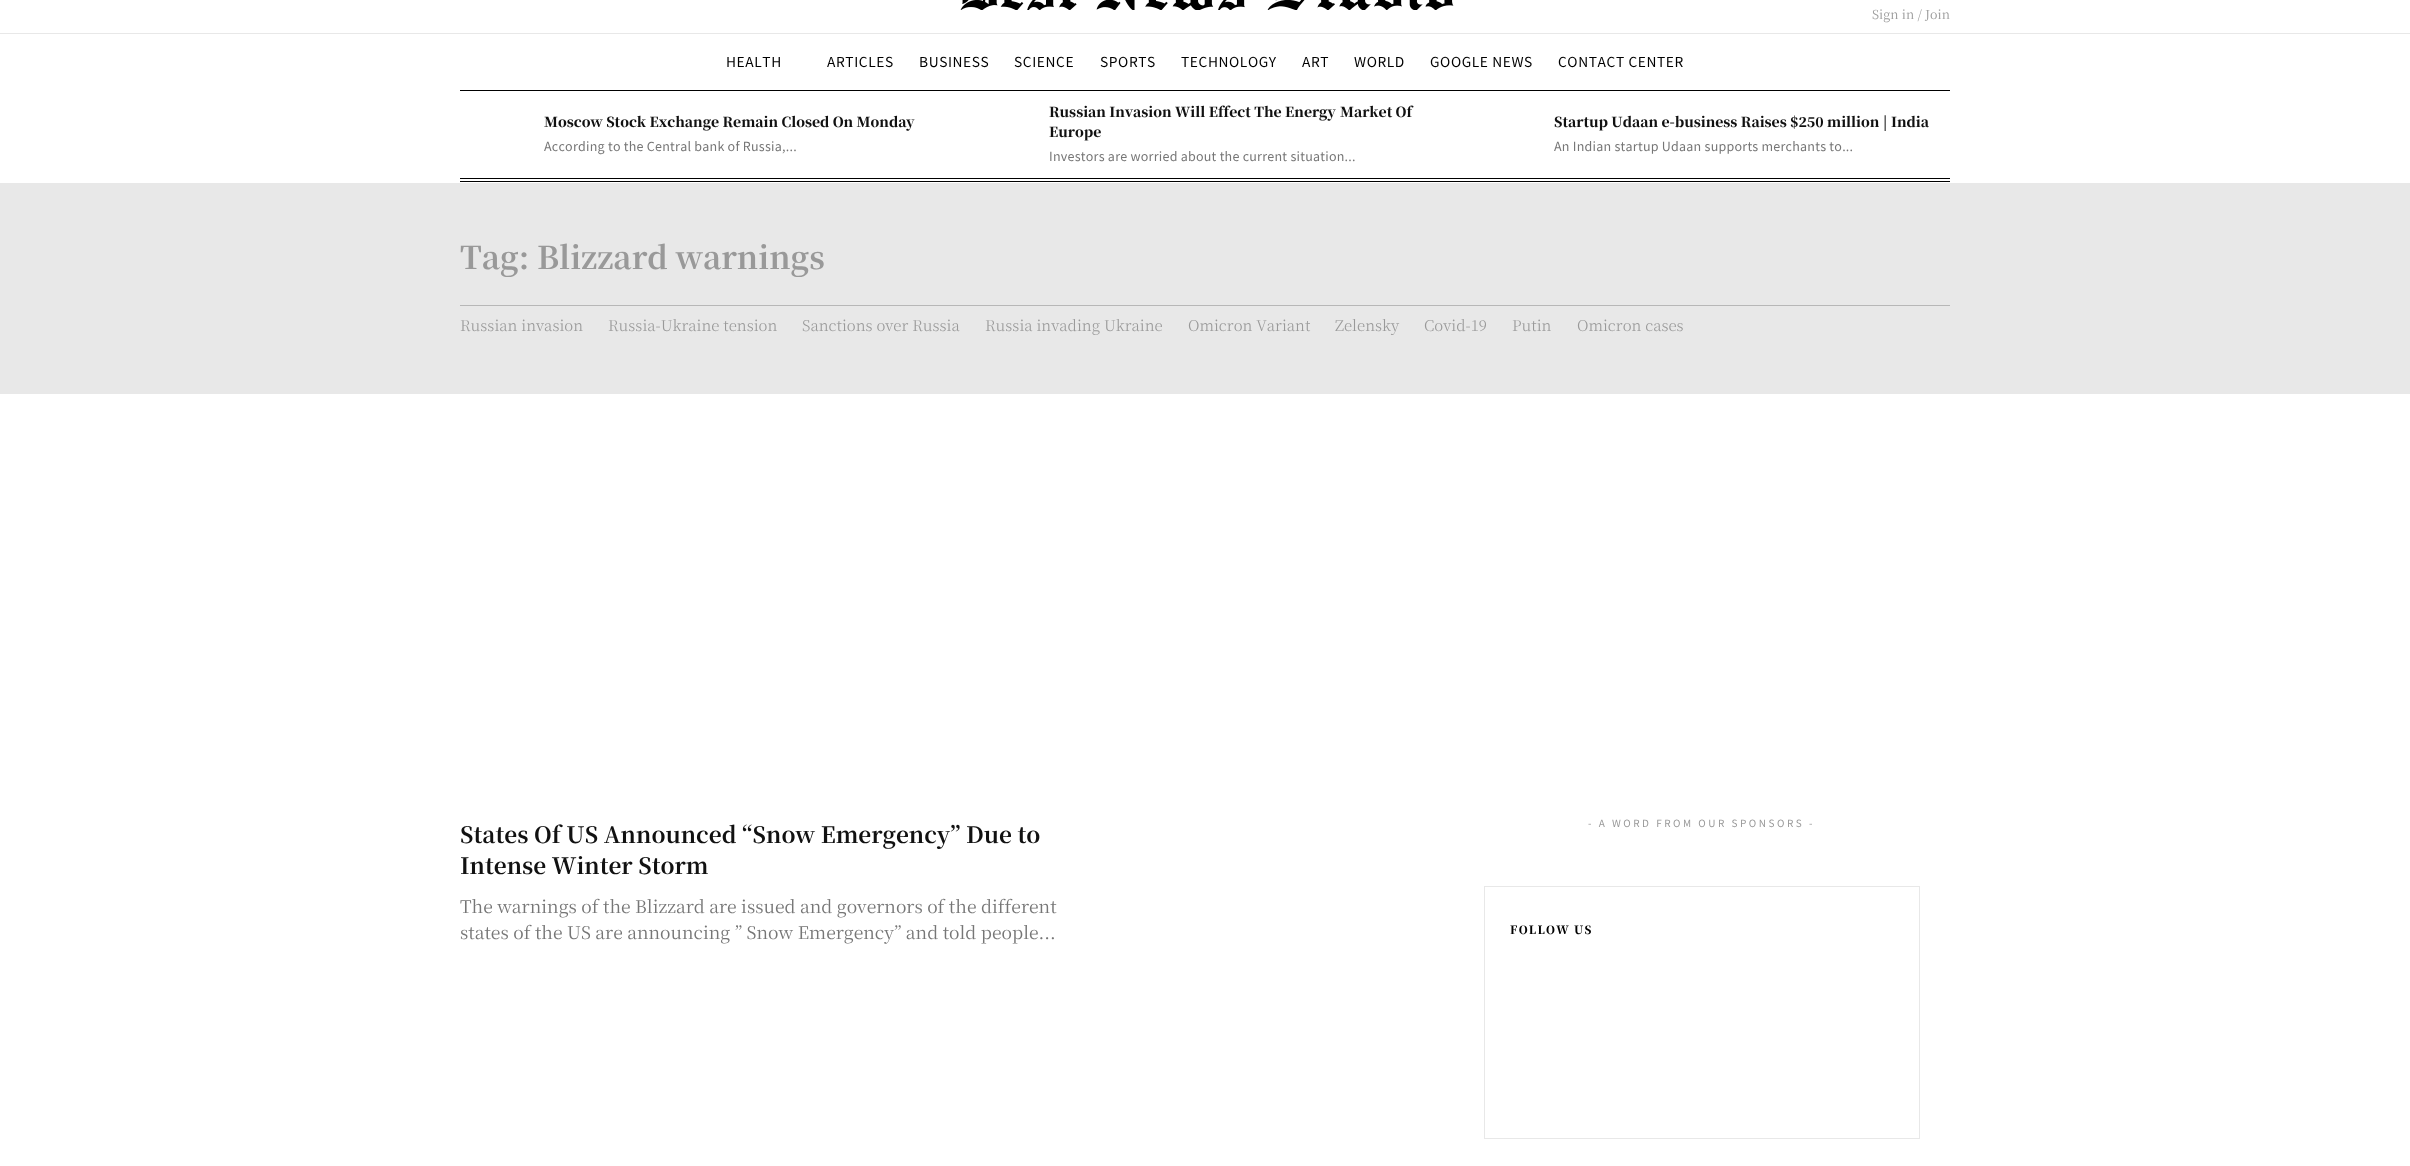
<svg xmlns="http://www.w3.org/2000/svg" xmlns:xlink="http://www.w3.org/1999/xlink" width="2410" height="1166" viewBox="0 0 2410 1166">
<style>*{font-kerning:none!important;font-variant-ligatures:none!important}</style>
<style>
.cls-1{font:12.5px Noto Serif JP;fill:#999999}
.cls-2{font:100 13.75px Noto Sans JP;letter-spacing:0.6px;fill:#000000}
.cls-3{font:900 13.75px Noto Serif JP;fill:#111111}
.cls-4{font:100 12.5px Noto Sans JP;letter-spacing:0.25px;fill:#767676}
.cls-5{font:bold 31.25px Noto Serif JP;fill:#999999}
.cls-6{font:300 15px Noto Serif JP;fill:#999999}
.cls-7{font:bold 22.5px Noto Serif JP;fill:#111111}
.cls-8{font:17.5px Noto Serif JP;fill:#767676}
.cls-9{font:100 10px Noto Sans JP;letter-spacing:2.5px;fill:#999999}
.cls-10{font:900 11.25px Noto Serif JP;letter-spacing:1.25px;fill:#000000}
</style>
<rect width="100%" height="100%" fill="#ffffff"/>
<image xlink:href="image0.png" x="960" y="0" width="494" height="10"/>
<rect fill="#e8e8e8" x="0" y="33" width="2410" height="1"/>
<rect fill="#000000" x="460" y="90" width="1490" height="1"/>
<rect fill="#000000" x="460" y="181" width="1490" height="1"/>
<rect fill="#000000" x="460" y="178" width="1490" height="1"/>
<rect fill="#e8e8e8" x="0" y="183" width="2410" height="211"/>
<rect fill="#b7b7b7" x="460" y="305" width="1490" height="1"/>
<rect fill="none" stroke="#e8e8e8" x="1484.5" y="886.5" width="435" height="252"/>
<text class="cls-1" x="1872" y="19">Sign in / Join</text>
<text class="cls-2" x="726" y="67">HEALTH</text>
<text class="cls-2" x="827" y="67">ARTICLES</text>
<text class="cls-2" x="919" y="67">BUSINESS</text>
<text class="cls-2" x="1014" y="67">SCIENCE</text>
<text class="cls-2" x="1100" y="67">SPORTS</text>
<text class="cls-2" x="1181" y="67">TECHNOLOGY</text>
<text class="cls-2" x="1302" y="67">ART</text>
<text class="cls-2" x="1354" y="67">WORLD</text>
<text class="cls-2" x="1430" y="67">GOOGLE NEWS</text>
<text class="cls-2" x="1558" y="67">CONTACT CENTER</text>
<text class="cls-3" x="544" y="127">Moscow Stock Exchange Remain Closed On Monday</text>
<text class="cls-4" x="544" y="151">According to the Central bank of Russia,...</text>
<text class="cls-3" x="1049" y="117">Russian Invasion Will Effect The Energy</text>
<text class="cls-3" x="1340" y="117">Market Of</text>
<text class="cls-3" x="1049" y="137">Europe</text>
<text class="cls-4" x="1049" y="161">Investors are worried about the current situation...</text>
<text class="cls-3" x="1554" y="127">Startup Udaan e-business Raises $250 million | India</text>
<text class="cls-4" x="1554" y="151">An Indian startup Udaan supports merchants to...</text>
<text class="cls-5" x="460" y="269">Tag: Blizzard warnings</text>
<text class="cls-6" x="460" y="331">Russian invasion</text>
<text class="cls-6" x="608" y="331">Russia-Ukraine tension</text>
<text class="cls-6" x="802" y="331">Sanctions over Russia</text>
<text class="cls-6" x="985" y="331">Russia invading Ukraine</text>
<text class="cls-6" x="1188" y="331">Omicron Variant</text>
<text class="cls-6" x="1335" y="331">Zelensky</text>
<text class="cls-6" x="1424" y="331">Covid-19</text>
<text class="cls-6" x="1512" y="331">Putin</text>
<text class="cls-6" x="1577" y="331">Omicron cases</text>
<text class="cls-7"><tspan x="460" y="843">States Of US Announced “Snow Emergency” Due to</tspan><tspan x="460" y="874">Intense Winter Storm</tspan></text>
<text class="cls-8"><tspan x="460" y="913">The warnings of the Blizzard are issued and governors of the different</tspan><tspan x="460" y="939">states of the US are announcing ” Snow Emergency” and told people...</tspan></text>
<text class="cls-9" x="1588" y="827">- A WORD FROM OUR SPONSORS -</text>
<text class="cls-10" x="1510" y="934">FOLLOW US</text>
</svg>
